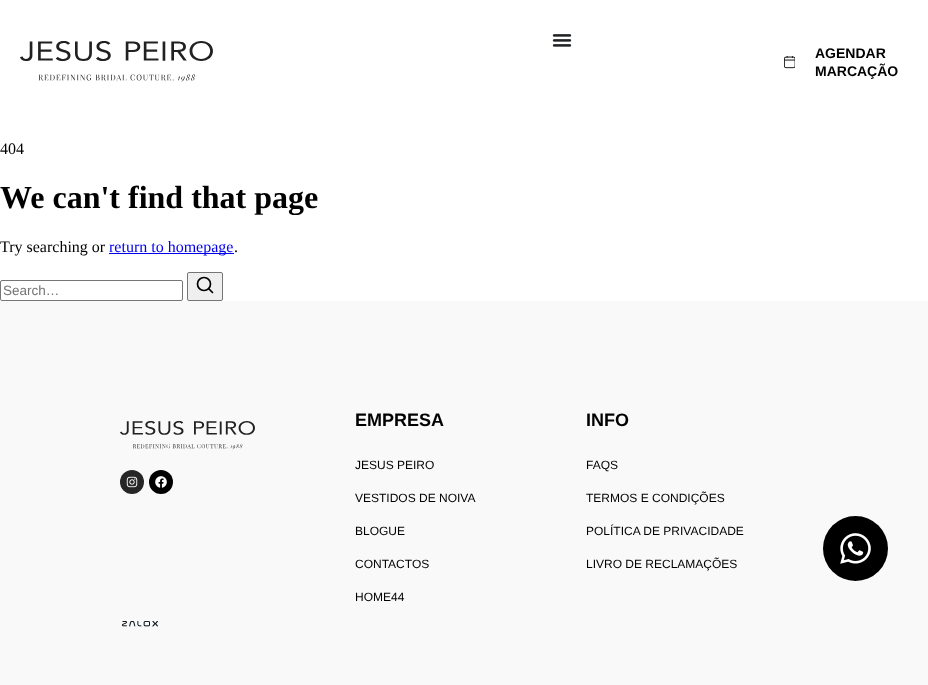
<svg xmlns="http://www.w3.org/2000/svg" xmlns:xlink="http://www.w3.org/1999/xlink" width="928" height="685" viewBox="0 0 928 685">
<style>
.cls-1{font:bold 14px Liberation Sans;fill:#000000}
.cls-2{font:16px Liberation Serif;fill:#000000}
.cls-3{font:bold 32px Liberation Serif;fill:#000000}
.cls-4{font:16px Liberation Serif;fill:#0000ee}
.cls-5{font:13.5px Liberation Sans;fill:#757575}
.cls-6{font:bold 18px Liberation Sans;fill:#000000}
.cls-7{font:12px Liberation Sans;fill:#000000}
</style>
<rect width="100%" height="100%" fill="#ffffff"/>
<image xlink:href="image0.png" x="20" y="41" width="193" height="41"/>
<image xlink:href="image1.png" x="552" y="34" width="20" height="13"/>
<image xlink:href="image2.png" x="784" y="56" width="11" height="13"/>
<rect fill="#0000ee" x="109" y="253" width="125" height="1"/>
<rect fill="none" stroke="#767676" x="0.5" y="280.5" width="182" height="20" rx="1.5"/>
<rect fill="#efefef" stroke="#767676" x="187.5" y="272.5" width="35" height="28" rx="1.5"/>
<circle fill="none" stroke="#000000" stroke-width="1.7" cx="204" cy="284" r="6.5"/>
<path fill="none" stroke="#000000" stroke-width="1.7" stroke-linecap="round" stroke-linejoin="round" d="M212.5 292.5L209 289"/>
<rect fill="#f9f9f9" x="0" y="301" width="928" height="384"/>
<image xlink:href="image3.png" x="120" y="421" width="135" height="29"/>
<circle fill="#262626" cx="132" cy="482" r="12"/>
<image xlink:href="image4.png" x="126" y="476" width="12" height="12"/>
<circle fill="#000000" cx="161" cy="482" r="12"/>
<image xlink:href="image5.png" x="155" y="476" width="12" height="12"/>
<image xlink:href="image6.png" x="122" y="621" width="36" height="6"/>
<circle fill="#000000" cx="855.5" cy="548.5" r="32.5"/>
<image xlink:href="image7.png" x="840" y="533" width="31" height="31"/>
<text class="cls-1"><tspan x="815" y="58">AGENDAR</tspan><tspan x="815" y="76">MARCAÇÃO</tspan></text>
<text class="cls-2" x="0" y="154">404</text>
<text class="cls-3" x="0" y="208">We can't find that page</text>
<text class="cls-2" x="0" y="252">Try searching or</text>
<text class="cls-4" x="109" y="252">return to homepage</text>
<text class="cls-2" x="234" y="252">.</text>
<text class="cls-5" x="3" y="295">Search…</text>
<text class="cls-6" x="355" y="426">EMPRESA</text>
<text class="cls-7" x="355" y="469">JESUS PEIRO</text>
<text class="cls-7" x="355" y="502">VESTIDOS DE NOIVA</text>
<text class="cls-7" x="355" y="535">BLOGUE</text>
<text class="cls-7" x="355" y="568">CONTACTOS</text>
<text class="cls-7" x="355" y="601">HOME44</text>
<text class="cls-6" x="586" y="426">INFO</text>
<text class="cls-7" x="586" y="469">FAQS</text>
<text class="cls-7" x="586" y="502">TERMOS E CONDIÇÕES</text>
<text class="cls-7" x="586" y="535">POLÍTICA DE PRIVACIDADE</text>
<text class="cls-7" x="586" y="568">LIVRO DE RECLAMAÇÕES</text>
</svg>
